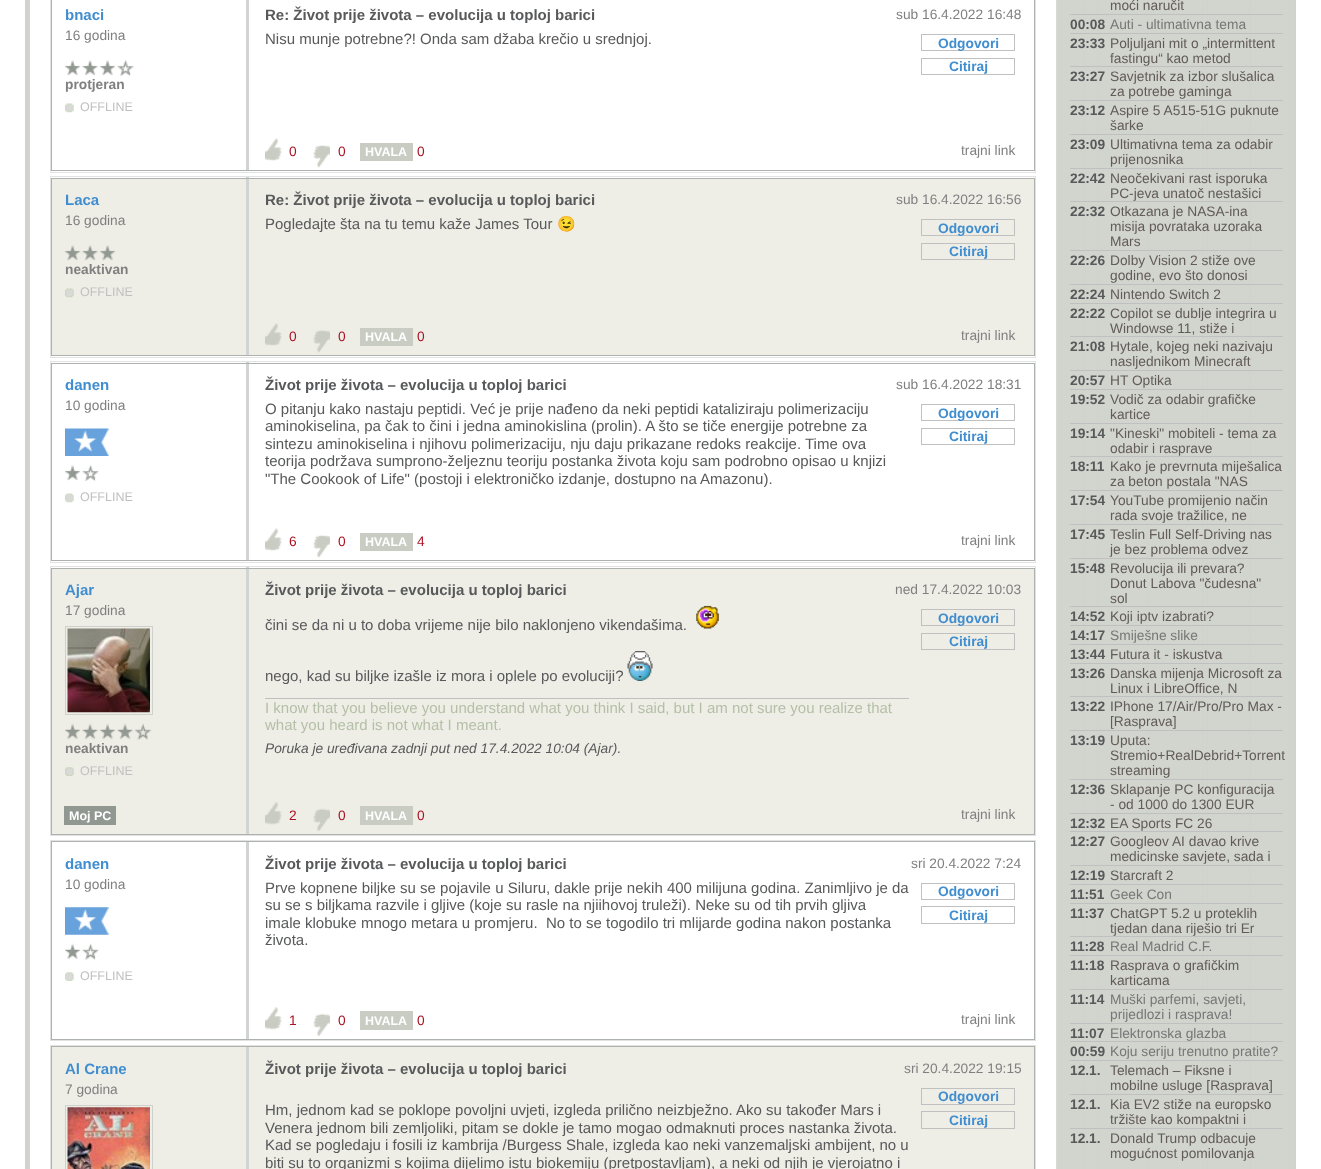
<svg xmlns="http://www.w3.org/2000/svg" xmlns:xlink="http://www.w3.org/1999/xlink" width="1321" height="1169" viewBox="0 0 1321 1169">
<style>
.cls-1{font:bold 15px Liberation Sans;fill:#408dcf}
.cls-2{font:13.75px Liberation Sans;fill:#808080}
.cls-3{font:bold 13.75px Liberation Sans;fill:#808080}
.cls-4{font:12.5px Liberation Sans;fill:#c0c0c0}
.cls-5{font:bold 15px Liberation Sans;fill:#58595a}
.cls-6{font:15px Liberation Sans;fill:#58595a}
.cls-7{font:bold 13.75px Liberation Sans;fill:#408dcf}
.cls-8{font:13.75px Liberation Sans;fill:#aa1323}
.cls-9{font:bold 12.5px Liberation Sans;fill:#ffffff}
.cls-10{font:15px Noto Color Emoji;fill:#58595a}
.cls-11{font:15px Liberation Sans;fill:#b5bfa7}
.cls-12{font:italic 13.75px Liberation Sans;fill:#58595a}
.cls-13{font:13.75px Liberation Sans;fill:#625b57}
.cls-14{font:bold 13.75px Liberation Sans;fill:#58595a}
.cls-15{font:13.75px Liberation Sans;fill:#777777}
</style>
<rect width="100%" height="100%" fill="#ffffff"/>
<image xlink:href="image0.png" x="1056" y="0" width="235" height="1169"/>
<rect fill="none" stroke="#d1d4cd" stroke-width="5" x="27.5" y="-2.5" width="1266" height="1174"/>
<rect fill="none" stroke="#e1e2e1" x="50.5" y="-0.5" width="985" height="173"/>
<rect fill="#d1d4d2" x="246" y="0" width="3" height="171"/>
<rect fill="none" stroke="#aeb2ae" x="51.5" y="-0.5" width="983" height="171"/>
<image xlink:href="image1.png" x="65" y="59" width="69" height="17"/>
<image xlink:href="image2.png" x="65" y="103" width="9" height="10"/>
<rect fill="none" stroke="#c0c0c0" x="921.5" y="34.5" width="93" height="16"/>
<rect fill="none" stroke="#c0c0c0" x="921.5" y="58.5" width="93" height="16"/>
<image xlink:href="image3.png" x="265" y="138" width="17" height="23"/>
<image xlink:href="image4.png" x="313" y="145" width="17" height="23"/>
<rect fill="#c8ccc3" x="360" y="143" width="53" height="18"/>
<rect fill="none" stroke="#e1e2e1" x="50.5" y="176.5" width="985" height="181"/>
<rect fill="#eeeee7" x="52" y="179" width="982" height="176"/>
<rect fill="#d1d4d2" x="246" y="177" width="3" height="179"/>
<rect fill="none" stroke="#aeb2ae" x="51.5" y="178.5" width="983" height="177"/>
<image xlink:href="image5.png" x="65" y="245" width="51" height="16"/>
<image xlink:href="image6.png" x="65" y="288" width="9" height="10"/>
<rect fill="none" stroke="#c0c0c0" x="921.5" y="219.5" width="93" height="16"/>
<rect fill="none" stroke="#c0c0c0" x="921.5" y="243.5" width="93" height="16"/>
<image xlink:href="image7.png" x="265" y="323" width="17" height="23"/>
<image xlink:href="image8.png" x="313" y="330" width="17" height="23"/>
<rect fill="#c8ccc3" x="360" y="328" width="53" height="18"/>
<rect fill="none" stroke="#e1e2e1" x="50.5" y="361.5" width="985" height="201"/>
<rect fill="#d1d4d2" x="246" y="362" width="3" height="199"/>
<rect fill="none" stroke="#aeb2ae" x="51.5" y="363.5" width="983" height="197"/>
<image xlink:href="image9.png" x="65" y="428" width="44" height="28"/>
<image xlink:href="image10.png" x="65" y="464" width="34" height="17"/>
<image xlink:href="image2.png" x="65" y="493" width="9" height="10"/>
<rect fill="none" stroke="#c0c0c0" x="921.5" y="404.5" width="93" height="16"/>
<rect fill="none" stroke="#c0c0c0" x="921.5" y="428.5" width="93" height="16"/>
<image xlink:href="image3.png" x="265" y="528" width="17" height="23"/>
<image xlink:href="image4.png" x="313" y="535" width="17" height="23"/>
<rect fill="#c8ccc3" x="360" y="533" width="53" height="18"/>
<rect fill="none" stroke="#e1e2e1" x="50.5" y="566.5" width="985" height="269"/>
<rect fill="#eeeee7" x="52" y="569" width="982" height="265"/>
<rect fill="#d1d4d2" x="246" y="567" width="3" height="268"/>
<rect fill="none" stroke="#aeb2ae" x="51.5" y="568.5" width="983" height="266"/>
<rect fill="none" stroke="#cdd0cb" x="65.5" y="626.5" width="87" height="88"/>
<image xlink:href="image11.png" x="67" y="628" width="83" height="85"/>
<image xlink:href="image12.png" x="65" y="723" width="87" height="17"/>
<image xlink:href="image13.png" x="65" y="767" width="9" height="9"/>
<image xlink:href="image14.png" x="696" y="605" width="23" height="24"/>
<image xlink:href="image15.png" x="627" y="651" width="26" height="30"/>
<rect fill="#c0c0c0" x="265" y="698" width="644" height="1"/>
<rect fill="none" stroke="#c0c0c0" x="921.5" y="609.5" width="93" height="16"/>
<rect fill="none" stroke="#c0c0c0" x="921.5" y="633.5" width="93" height="16"/>
<rect fill="#919791" x="64" y="806" width="52" height="19"/>
<image xlink:href="image16.png" x="265" y="802" width="17" height="23"/>
<image xlink:href="image17.png" x="313" y="808" width="17" height="23"/>
<rect fill="#c8ccc3" x="360" y="806" width="53" height="19"/>
<rect fill="none" stroke="#e1e2e1" x="50.5" y="840.5" width="985" height="200"/>
<rect fill="#d1d4d2" x="246" y="841" width="3" height="199"/>
<rect fill="none" stroke="#aeb2ae" x="51.5" y="841.5" width="983" height="198"/>
<image xlink:href="image18.png" x="65" y="907" width="44" height="28"/>
<image xlink:href="image19.png" x="65" y="943" width="34" height="17"/>
<image xlink:href="image20.png" x="65" y="972" width="9" height="9"/>
<rect fill="none" stroke="#c0c0c0" x="921.5" y="883.5" width="93" height="16"/>
<rect fill="none" stroke="#c0c0c0" x="921.5" y="906.5" width="93" height="17"/>
<image xlink:href="image21.png" x="265" y="1007" width="17" height="23"/>
<image xlink:href="image22.png" x="313" y="1013" width="17" height="23"/>
<rect fill="#c8ccc3" x="360" y="1011" width="53" height="19"/>
<rect fill="none" stroke="#e1e2e1" x="50.5" y="1045.5" width="985" height="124"/>
<rect fill="#eeeee7" x="52" y="1047" width="982" height="122"/>
<rect fill="#d1d4d2" x="246" y="1046" width="3" height="123"/>
<rect fill="none" stroke="#aeb2ae" x="51.5" y="1046.5" width="983" height="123"/>
<rect fill="none" stroke="#cdd0cb" x="65.5" y="1105.5" width="87" height="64"/>
<image xlink:href="image23.png" x="67" y="1107" width="83" height="62"/>
<rect fill="none" stroke="#c0c0c0" x="921.5" y="1088.5" width="93" height="16"/>
<rect fill="none" stroke="#c0c0c0" x="921.5" y="1111.5" width="93" height="17"/>
<rect fill="#c0c0c0" x="1070" y="14" width="213" height="1"/>
<rect fill="#c0c0c0" x="1070" y="33" width="213" height="1"/>
<rect fill="#c0c0c0" x="1070" y="66" width="213" height="1"/>
<rect fill="#c0c0c0" x="1070" y="100" width="213" height="1"/>
<rect fill="#c0c0c0" x="1070" y="134" width="213" height="1"/>
<rect fill="#c0c0c0" x="1070" y="168" width="213" height="1"/>
<rect fill="#c0c0c0" x="1070" y="201" width="213" height="1"/>
<rect fill="#c0c0c0" x="1070" y="250" width="213" height="1"/>
<rect fill="#c0c0c0" x="1070" y="284" width="213" height="1"/>
<rect fill="#c0c0c0" x="1070" y="303" width="213" height="1"/>
<rect fill="#c0c0c0" x="1070" y="336" width="213" height="1"/>
<rect fill="#c0c0c0" x="1070" y="370" width="213" height="1"/>
<rect fill="#c0c0c0" x="1070" y="389" width="213" height="1"/>
<rect fill="#c0c0c0" x="1070" y="423" width="213" height="1"/>
<rect fill="#c0c0c0" x="1070" y="456" width="213" height="1"/>
<rect fill="#c0c0c0" x="1070" y="490" width="213" height="1"/>
<rect fill="#c0c0c0" x="1070" y="524" width="213" height="1"/>
<rect fill="#c0c0c0" x="1070" y="558" width="213" height="1"/>
<rect fill="#c0c0c0" x="1070" y="606" width="213" height="1"/>
<rect fill="#c0c0c0" x="1070" y="625" width="213" height="1"/>
<rect fill="#c0c0c0" x="1070" y="644" width="213" height="1"/>
<rect fill="#c0c0c0" x="1070" y="663" width="213" height="1"/>
<rect fill="#c0c0c0" x="1070" y="696" width="213" height="1"/>
<rect fill="#c0c0c0" x="1070" y="730" width="213" height="1"/>
<rect fill="#c0c0c0" x="1070" y="779" width="213" height="1"/>
<rect fill="#c0c0c0" x="1070" y="813" width="213" height="1"/>
<rect fill="#c0c0c0" x="1070" y="831" width="213" height="1"/>
<rect fill="#c0c0c0" x="1070" y="865" width="213" height="1"/>
<rect fill="#c0c0c0" x="1070" y="884" width="213" height="1"/>
<rect fill="#c0c0c0" x="1070" y="903" width="213" height="1"/>
<rect fill="#c0c0c0" x="1070" y="936" width="213" height="1"/>
<rect fill="#c0c0c0" x="1070" y="955" width="213" height="1"/>
<rect fill="#c0c0c0" x="1070" y="989" width="213" height="1"/>
<rect fill="#c0c0c0" x="1070" y="1023" width="213" height="1"/>
<rect fill="#c0c0c0" x="1070" y="1041" width="213" height="1"/>
<rect fill="#c0c0c0" x="1070" y="1060" width="213" height="1"/>
<rect fill="#c0c0c0" x="1070" y="1094" width="213" height="1"/>
<rect fill="#c0c0c0" x="1070" y="1128" width="213" height="1"/>
<text class="cls-1" x="65" y="20">bnaci</text>
<text class="cls-2" x="65" y="40">16 godina</text>
<text class="cls-3" x="65" y="89">protjeran</text>
<text class="cls-4" x="80" y="111">OFFLINE</text>
<text class="cls-5" x="265" y="20">Re: Život prije života – evolucija u toploj barici</text>
<text class="cls-6" x="265" y="44">Nisu munje potrebne?! Onda sam džaba krečio u srednjoj.</text>
<text class="cls-2" x="896" y="19">sub 16.4.2022 16:48</text>
<text class="cls-7" x="938" y="48">Odgovori</text>
<text class="cls-7" x="949" y="71">Citiraj</text>
<text class="cls-8" x="289" y="156">0</text>
<text class="cls-8" x="338" y="156">0</text>
<text class="cls-9" x="365" y="156">HVALA</text>
<text class="cls-8" x="417" y="156">0</text>
<text class="cls-2" x="961" y="155">trajni link</text>
<text class="cls-1" x="65" y="205">Laca</text>
<text class="cls-2" x="65" y="225">16 godina</text>
<text class="cls-3" x="65" y="274">neaktivan</text>
<text class="cls-4" x="80" y="296">OFFLINE</text>
<text class="cls-5" x="265" y="205">Re: Život prije života – evolucija u toploj barici</text>
<text class="cls-6" x="265" y="229">Pogledajte šta na tu temu kaže James Tour</text>
<text class="cls-10" x="557" y="229">😉</text>
<text class="cls-2" x="896" y="204">sub 16.4.2022 16:56</text>
<text class="cls-7" x="938" y="233">Odgovori</text>
<text class="cls-7" x="949" y="256">Citiraj</text>
<text class="cls-8" x="289" y="341">0</text>
<text class="cls-8" x="338" y="341">0</text>
<text class="cls-9" x="365" y="341">HVALA</text>
<text class="cls-8" x="417" y="341">0</text>
<text class="cls-2" x="961" y="340">trajni link</text>
<text class="cls-1" x="65" y="390">danen</text>
<text class="cls-2" x="65" y="410">10 godina</text>
<text class="cls-4" x="80" y="501">OFFLINE</text>
<text class="cls-5" x="265" y="390">Život prije života – evolucija u toploj barici</text>
<text class="cls-6"><tspan x="265" y="414">O pitanju kako nastaju peptidi. Već je prije nađeno da neki peptidi kataliziraju polimerizaciju</tspan><tspan x="265" y="431">aminokiselina, pa čak to čini i jedna aminokislina (prolin). A što se tiče energije potrebne za</tspan><tspan x="265" y="449">sintezu aminokiselina i njihovu polimerizaciju, nju daju prikazane redoks reakcije. Time ova</tspan><tspan x="265" y="466">teorija podržava sumprono-željeznu teoriju postanka života koju sam podrobno opisao u knjizi</tspan><tspan x="265" y="484">"The Cookook of Life" (postoji i elektroničko izdanje, dostupno na Amazonu).</tspan></text>
<text class="cls-2" x="896" y="389">sub 16.4.2022 18:31</text>
<text class="cls-7" x="938" y="418">Odgovori</text>
<text class="cls-7" x="949" y="441">Citiraj</text>
<text class="cls-8" x="289" y="546">6</text>
<text class="cls-8" x="338" y="546">0</text>
<text class="cls-9" x="365" y="546">HVALA</text>
<text class="cls-8" x="417" y="546">4</text>
<text class="cls-2" x="961" y="545">trajni link</text>
<text class="cls-1" x="65" y="595">Ajar</text>
<text class="cls-2" x="65" y="615">17 godina</text>
<text class="cls-3" x="65" y="753">neaktivan</text>
<text class="cls-4" x="80" y="775">OFFLINE</text>
<text class="cls-5" x="265" y="595">Život prije života – evolucija u toploj barici</text>
<text class="cls-6" x="265" y="630">čini se da ni u to doba vrijeme nije bilo naklonjeno vikendašima.</text>
<text class="cls-6" x="265" y="681">nego, kad su biljke izašle iz mora i oplele po evoluciji?</text>
<text class="cls-11"><tspan x="265" y="713">I know that you believe you understand what you think I said, but I am not sure you realize that</tspan><tspan x="265" y="730">what you heard is not what I meant.</tspan></text>
<text class="cls-12" x="265" y="753">Poruka je uređivana zadnji put ned 17.4.2022 10:04 (Ajar).</text>
<text class="cls-2" x="895" y="594">ned 17.4.2022 10:03</text>
<text class="cls-7" x="938" y="623">Odgovori</text>
<text class="cls-7" x="949" y="646">Citiraj</text>
<text class="cls-9" x="69" y="820">Moj PC</text>
<text class="cls-8" x="289" y="820">2</text>
<text class="cls-8" x="338" y="820">0</text>
<text class="cls-9" x="365" y="820">HVALA</text>
<text class="cls-8" x="417" y="820">0</text>
<text class="cls-2" x="961" y="819">trajni link</text>
<text class="cls-1" x="65" y="869">danen</text>
<text class="cls-2" x="65" y="889">10 godina</text>
<text class="cls-4" x="80" y="980">OFFLINE</text>
<text class="cls-5" x="265" y="869">Život prije života – evolucija u toploj barici</text>
<text class="cls-6" xml:space="preserve"><tspan x="265" y="893">Prve kopnene biljke su se pojavile u Siluru, dakle prije nekih 400 milijuna godina. Zanimljivo je da</tspan><tspan x="265" y="910">su se s biljkama razvile i gljive (koje su rasle na njiihovoj truleži). Neke su od tih prvih gljiva</tspan><tspan x="265" y="928">imale klobuke mnogo metara u promjeru.  No to se togodilo tri mlijarde godina nakon postanka</tspan><tspan x="265" y="945">života.</tspan></text>
<text class="cls-2" x="911" y="868">sri 20.4.2022 7:24</text>
<text class="cls-7" x="938" y="896">Odgovori</text>
<text class="cls-7" x="949" y="920">Citiraj</text>
<text class="cls-8" x="289" y="1025">1</text>
<text class="cls-8" x="338" y="1025">0</text>
<text class="cls-9" x="365" y="1025">HVALA</text>
<text class="cls-8" x="417" y="1025">0</text>
<text class="cls-2" x="961" y="1024">trajni link</text>
<text class="cls-1" x="65" y="1074">Al Crane</text>
<text class="cls-2" x="65" y="1094">7 godina</text>
<text class="cls-5" x="265" y="1074">Život prije života – evolucija u toploj barici</text>
<text class="cls-6"><tspan x="265" y="1115">Hm, jednom kad se poklope povoljni uvjeti, izgleda prilično neizbježno. Ako su također Mars i</tspan><tspan x="265" y="1133">Venera jednom bili zemljoliki, pitam se dokle je tamo mogao odmaknuti proces nastanka života.</tspan><tspan x="265" y="1150">Kad se pogledaju i fosili iz kambrija /Burgess Shale, izgleda kao neki vanzemaljski ambijent, no u</tspan><tspan x="265" y="1168">biti su to organizmi s kojima dijelimo istu biokemiju (pretpostavljam), a neki od njih je vjerojatno i</tspan></text>
<text class="cls-2" x="904" y="1073">sri 20.4.2022 19:15</text>
<text class="cls-7" x="938" y="1101">Odgovori</text>
<text class="cls-7" x="949" y="1125">Citiraj</text>
<text class="cls-13" x="1110" y="10">moći naručit</text>
<text class="cls-14" x="1070" y="29">00:08</text>
<text class="cls-15" x="1110" y="29">Auti - ultimativna tema</text>
<text class="cls-14" x="1070" y="48">23:33</text>
<text class="cls-13"><tspan x="1110" y="48">Poljuljani mit o „intermittent</tspan><tspan x="1110" y="63">fastingu“ kao metod</tspan></text>
<text class="cls-14" x="1070" y="81">23:27</text>
<text class="cls-13"><tspan x="1110" y="81">Savjetnik za izbor slušalica</tspan><tspan x="1110" y="96">za potrebe gaminga</tspan></text>
<text class="cls-14" x="1070" y="115">23:12</text>
<text class="cls-13"><tspan x="1110" y="115">Aspire 5 A515-51G puknute</tspan><tspan x="1110" y="130">šarke</tspan></text>
<text class="cls-14" x="1070" y="149">23:09</text>
<text class="cls-13"><tspan x="1110" y="149">Ultimativna tema za odabir</tspan><tspan x="1110" y="164">prijenosnika</tspan></text>
<text class="cls-14" x="1070" y="183">22:42</text>
<text class="cls-13"><tspan x="1110" y="183">Neočekivani rast isporuka</tspan><tspan x="1110" y="198">PC-jeva unatoč nestašici</tspan></text>
<text class="cls-14" x="1070" y="216">22:32</text>
<text class="cls-13"><tspan x="1110" y="216">Otkazana je NASA-ina</tspan><tspan x="1110" y="231">misija povrataka uzoraka</tspan><tspan x="1110" y="246">Mars</tspan></text>
<text class="cls-14" x="1070" y="265">22:26</text>
<text class="cls-13"><tspan x="1110" y="265">Dolby Vision 2 stiže ove</tspan><tspan x="1110" y="280">godine, evo što donosi</tspan></text>
<text class="cls-14" x="1070" y="299">22:24</text>
<text class="cls-13" x="1110" y="299">Nintendo Switch 2</text>
<text class="cls-14" x="1070" y="318">22:22</text>
<text class="cls-13"><tspan x="1110" y="318">Copilot se dublje integrira u</tspan><tspan x="1110" y="333">Windowse 11, stiže i</tspan></text>
<text class="cls-14" x="1070" y="351">21:08</text>
<text class="cls-13"><tspan x="1110" y="351">Hytale, kojeg neki nazivaju</tspan><tspan x="1110" y="366">nasljednikom Minecraft</tspan></text>
<text class="cls-14" x="1070" y="385">20:57</text>
<text class="cls-13" x="1110" y="385">HT Optika</text>
<text class="cls-14" x="1070" y="404">19:52</text>
<text class="cls-13"><tspan x="1110" y="404">Vodič za odabir grafičke</tspan><tspan x="1110" y="419">kartice</tspan></text>
<text class="cls-14" x="1070" y="438">19:14</text>
<text class="cls-13"><tspan x="1110" y="438">"Kineski" mobiteli - tema za</tspan><tspan x="1110" y="453">odabir i rasprave</tspan></text>
<text class="cls-14" x="1070" y="471">18:11</text>
<text class="cls-13"><tspan x="1110" y="471">Kako je prevrnuta miješalica</tspan><tspan x="1110" y="486">za beton postala "NAS</tspan></text>
<text class="cls-14" x="1070" y="505">17:54</text>
<text class="cls-13"><tspan x="1110" y="505">YouTube promijenio način</tspan><tspan x="1110" y="520">rada svoje tražilice, ne</tspan></text>
<text class="cls-14" x="1070" y="539">17:45</text>
<text class="cls-13"><tspan x="1110" y="539">Teslin Full Self-Driving nas</tspan><tspan x="1110" y="554">je bez problema odvez</tspan></text>
<text class="cls-14" x="1070" y="573">15:48</text>
<text class="cls-13"><tspan x="1110" y="573">Revolucija ili prevara?</tspan><tspan x="1110" y="588">Donut Labova "čudesna"</tspan><tspan x="1110" y="603">sol</tspan></text>
<text class="cls-14" x="1070" y="621">14:52</text>
<text class="cls-13" x="1110" y="621">Koji iptv izabrati?</text>
<text class="cls-14" x="1070" y="640">14:17</text>
<text class="cls-15" x="1110" y="640">Smiješne slike</text>
<text class="cls-14" x="1070" y="659">13:44</text>
<text class="cls-13" x="1110" y="659">Futura it - iskustva</text>
<text class="cls-14" x="1070" y="678">13:26</text>
<text class="cls-13"><tspan x="1110" y="678">Danska mijenja Microsoft za</tspan><tspan x="1110" y="693">Linux i LibreOffice, N</tspan></text>
<text class="cls-14" x="1070" y="711">13:22</text>
<text class="cls-13"><tspan x="1110" y="711">IPhone 17/Air/Pro/Pro Max -</tspan><tspan x="1110" y="726">[Rasprava]</tspan></text>
<text class="cls-14" x="1070" y="745">13:19</text>
<text class="cls-13"><tspan x="1110" y="745">Uputa:</tspan><tspan x="1110" y="760">Stremio+RealDebrid+Torrent</tspan><tspan x="1110" y="775">streaming</tspan></text>
<text class="cls-14" x="1070" y="794">12:36</text>
<text class="cls-13"><tspan x="1110" y="794">Sklapanje PC konfiguracija</tspan><tspan x="1110" y="809">- od 1000 do 1300 EUR</tspan></text>
<text class="cls-14" x="1070" y="828">12:32</text>
<text class="cls-13" x="1110" y="828">EA Sports FC 26</text>
<text class="cls-14" x="1070" y="846">12:27</text>
<text class="cls-13"><tspan x="1110" y="846">Googleov AI davao krive</tspan><tspan x="1110" y="861">medicinske savjete, sada i</tspan></text>
<text class="cls-14" x="1070" y="880">12:19</text>
<text class="cls-13" x="1110" y="880">Starcraft 2</text>
<text class="cls-14" x="1070" y="899">11:51</text>
<text class="cls-15" x="1110" y="899">Geek Con</text>
<text class="cls-14" x="1070" y="918">11:37</text>
<text class="cls-13"><tspan x="1110" y="918">ChatGPT 5.2 u proteklih</tspan><tspan x="1110" y="933">tjedan dana riješio tri Er</tspan></text>
<text class="cls-14" x="1070" y="951">11:28</text>
<text class="cls-15" x="1110" y="951">Real Madrid C.F.</text>
<text class="cls-14" x="1070" y="970">11:18</text>
<text class="cls-13"><tspan x="1110" y="970">Rasprava o grafičkim</tspan><tspan x="1110" y="985">karticama</tspan></text>
<text class="cls-14" x="1070" y="1004">11:14</text>
<text class="cls-15"><tspan x="1110" y="1004">Muški parfemi, savjeti,</tspan><tspan x="1110" y="1019">prijedlozi i rasprava!</tspan></text>
<text class="cls-14" x="1070" y="1038">11:07</text>
<text class="cls-15" x="1110" y="1038">Elektronska glazba</text>
<text class="cls-14" x="1070" y="1056">00:59</text>
<text class="cls-15" x="1110" y="1056">Koju seriju trenutno pratite?</text>
<text class="cls-14" x="1070" y="1075">12.1.</text>
<text class="cls-13"><tspan x="1110" y="1075">Telemach – Fiksne i</tspan><tspan x="1110" y="1090">mobilne usluge [Rasprava]</tspan></text>
<text class="cls-14" x="1070" y="1109">12.1.</text>
<text class="cls-13"><tspan x="1110" y="1109">Kia EV2 stiže na europsko</tspan><tspan x="1110" y="1124">tržište kao kompaktni i</tspan></text>
<text class="cls-14" x="1070" y="1143">12.1.</text>
<text class="cls-13"><tspan x="1110" y="1143">Donald Trump odbacuje</tspan><tspan x="1110" y="1158">mogućnost pomilovanja</tspan></text>
</svg>
